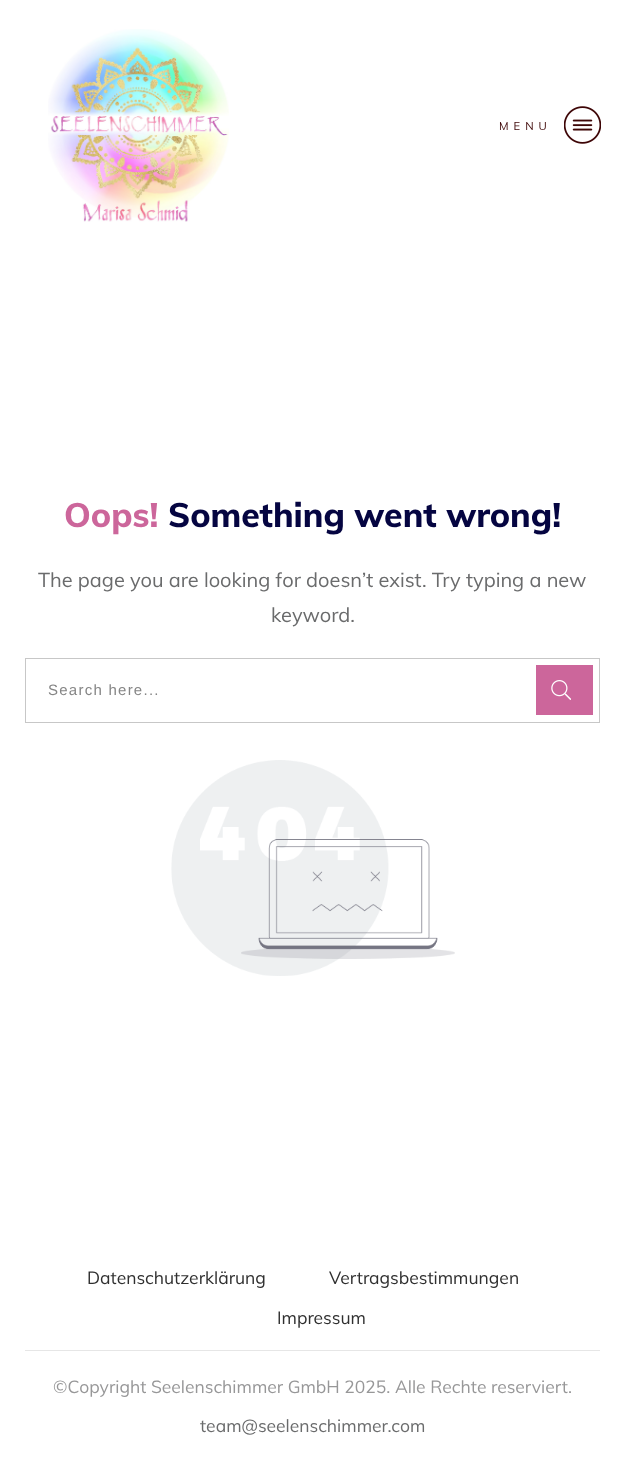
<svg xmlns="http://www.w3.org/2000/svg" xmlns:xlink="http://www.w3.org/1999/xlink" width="624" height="1467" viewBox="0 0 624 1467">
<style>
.cls-1{font:11.25px Muli;letter-spacing:5px;fill:#3d0506}
.cls-2{font:800 33.75px Muli;fill:#cc669b}
.cls-3{font:800 33.75px Muli;fill:#050541}
.cls-4{font:20px Muli;fill:#6a6b6c}
.cls-5{font:15px Liberation Sans;letter-spacing:1.25px;fill:#858585}
.cls-6{font:17.5px Muli;fill:#2f2f2f}
.cls-7{font:17.5px Muli;fill:#979798}
.cls-8{font:17.5px Muli;fill:#6a6b6c}
</style>
<rect width="100%" height="100%" fill="#ffffff"/>
<image xlink:href="image0.png" x="48" y="29" width="181" height="193"/>
<image xlink:href="image1.png" x="564" y="106" width="37" height="38"/>
<rect fill="none" stroke="#c7c7c7" x="25.5" y="658.5" width="574" height="64"/>
<rect fill="#cc669b" x="536" y="665" width="57" height="50"/>
<image xlink:href="image2.png" x="551" y="680" width="20" height="20"/>
<image xlink:href="image3.png" x="171" y="760" width="284" height="216"/>
<rect fill="#e6e6e6" x="25" y="1350" width="575" height="1"/>
<text class="cls-1" x="499" y="130">MENU</text>
<text class="cls-2" x="64" y="527">Oops!</text>
<text class="cls-3" x="168" y="527">Something went wrong!</text>
<text class="cls-4" x="38" y="587">The page you are looking for doesn’t exist. Try typing a new</text>
<text class="cls-4" x="271" y="622">keyword.</text>
<text class="cls-5" x="48" y="695">Search here...</text>
<text class="cls-6" x="87" y="1284">Datenschutzerklärung</text>
<text class="cls-6" x="329" y="1284">Vertragsbestimmungen</text>
<text class="cls-6" x="277" y="1324">Impressum</text>
<text class="cls-7" x="53" y="1393">©Copyright Seelenschimmer GmbH 2025. Alle Rechte reserviert.</text>
<text class="cls-8" x="200" y="1432">team@seelenschimmer.com</text>
</svg>
